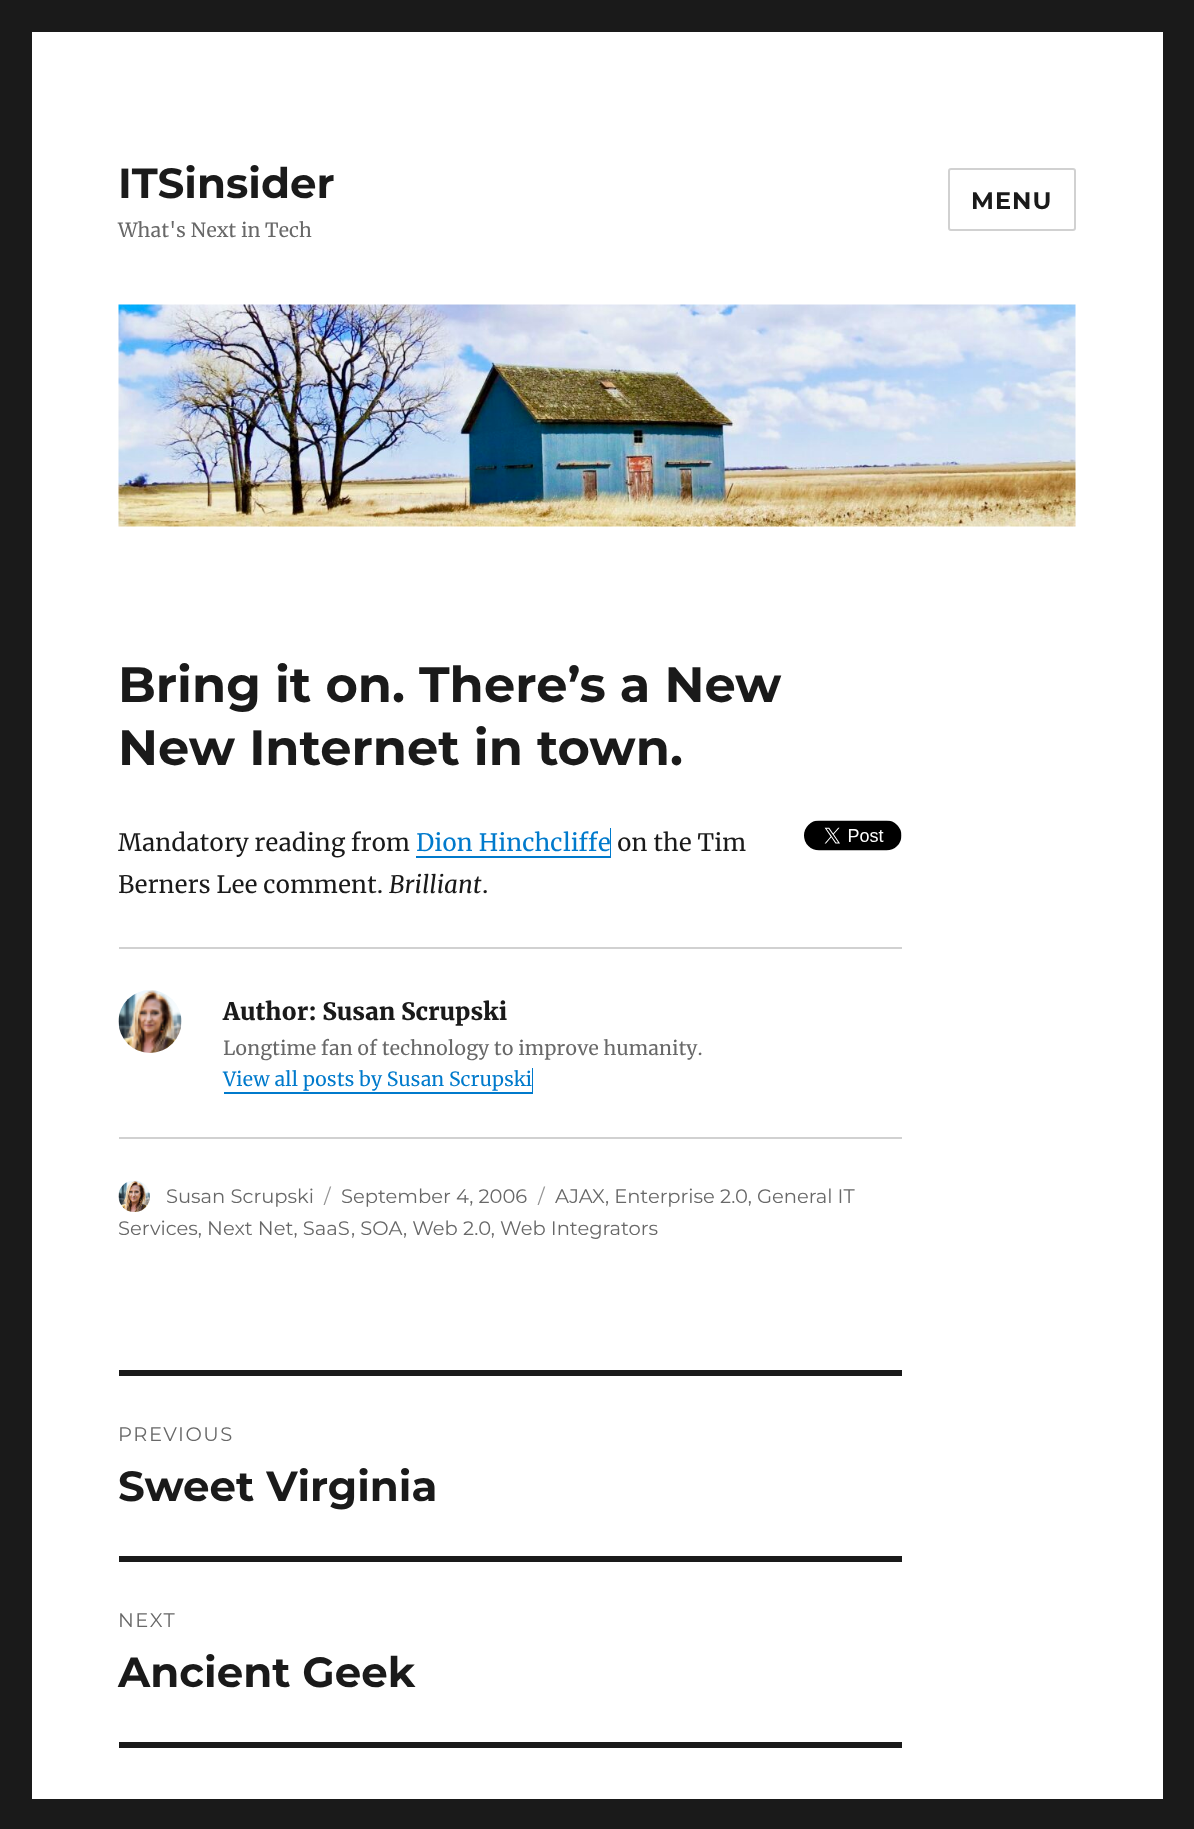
<svg xmlns="http://www.w3.org/2000/svg" xmlns:xlink="http://www.w3.org/1999/xlink" width="1194" height="1829" viewBox="0 0 1194 1829">
<style>
.cls-1{font:100 42px Montserrat;fill:#1a1a1a}
.cls-2{font:19.5px Merriweather;fill:#686868}
.cls-3{font:100 24px Montserrat;letter-spacing:1px;fill:#1a1a1a}
.cls-4{font:100 49.5px Montserrat;fill:#1a1a1a}
.cls-5{font:24px Merriweather;fill:#1a1a1a}
.cls-6{font:24px Merriweather;fill:#007acc}
.cls-7{font:italic 24px Merriweather;fill:#1a1a1a}
.cls-8{font:900 24px Merriweather;fill:#1a1a1a}
.cls-9{font:19.5px Merriweather;fill:#007acc}
.cls-10{font:100 19.5px 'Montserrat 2';fill:#686868}
.cls-11{font:100 19.5px 'Montserrat 2';fill:#959595}
.cls-12{font:100 19.5px 'Montserrat 2';letter-spacing:1.5px;fill:#686868}
</style>
<rect width="100%" height="100%" fill="#1a1a1a"/>
<rect fill="#ffffff" x="32" y="32" width="1131" height="1767"/>
<rect fill="none" stroke="#d1d1d1" stroke-width="2" x="949" y="169" width="126" height="61" rx="2"/>
<image xlink:href="image0.png" x="118" y="304" width="958" height="223"/>
<path fill="#007acc" d="M416 856V858H611V828H610V856Z"/>
<image xlink:href="image1.png" x="804" y="820" width="98" height="31"/>
<rect fill="#d1d1d1" x="119" y="947" width="783" height="2"/>
<rect fill="#d1d1d1" x="119" y="1137" width="783" height="2"/>
<image xlink:href="image2.png" x="118" y="990" width="64" height="63"/>
<path fill="#007acc" d="M224 1092V1094H533V1068H532V1092Z"/>
<image xlink:href="image3.png" x="118" y="1180" width="32" height="32"/>
<rect fill="#1a1a1a" x="119" y="1370" width="783" height="6"/>
<rect fill="#1a1a1a" x="119" y="1742" width="783" height="6"/>
<rect fill="#1a1a1a" x="119" y="1556" width="783" height="6"/>
<text class="cls-1" x="118" y="198">ITSinsider</text>
<text class="cls-2" x="118" y="237">What's Next in Tech</text>
<text class="cls-3" x="971" y="209">MENU</text>
<text class="cls-4"><tspan x="118" y="702">Bring it on. There’s a New</tspan><tspan x="118" y="765">New Internet in town.</tspan></text>
<text class="cls-5" x="118" y="851">Mandatory reading from</text>
<text class="cls-6" x="416" y="851">Dion Hinchcliffe</text>
<text class="cls-5" x="617" y="851">on the Tim</text>
<text class="cls-5" x="118" y="893">Berners Lee comment.</text>
<text class="cls-7" x="389" y="893">Brilliant</text>
<text class="cls-5" x="482" y="893">.</text>
<text class="cls-8" x="223" y="1020">Author: Susan Scrupski</text>
<text class="cls-2" x="223" y="1055">Longtime fan of technology to improve humanity.</text>
<text class="cls-9" x="223" y="1086">View all posts by Susan Scrupski</text>
<text class="cls-10" x="166" y="1203">Susan Scrupski</text>
<text class="cls-11" x="324" y="1203">/</text>
<text class="cls-10" x="341" y="1203">September 4, 2006</text>
<text class="cls-11" x="538" y="1203">/</text>
<text class="cls-10" x="555" y="1203">AJAX, Enterprise 2.0, General IT</text>
<text class="cls-10" x="118" y="1235">Services, Next Net, SaaS</text>
<text class="cls-10" x="351" y="1235">, SOA</text>
<text class="cls-10" x="403" y="1235">, Web 2.0, Web Integrators</text>
<text class="cls-12" x="118" y="1441">PREVIOUS</text>
<text class="cls-1" x="118" y="1501">Sweet Virginia</text>
<text class="cls-12" x="118" y="1627">NEXT</text>
<text class="cls-1" x="118" y="1687">Ancient Geek</text>
</svg>
